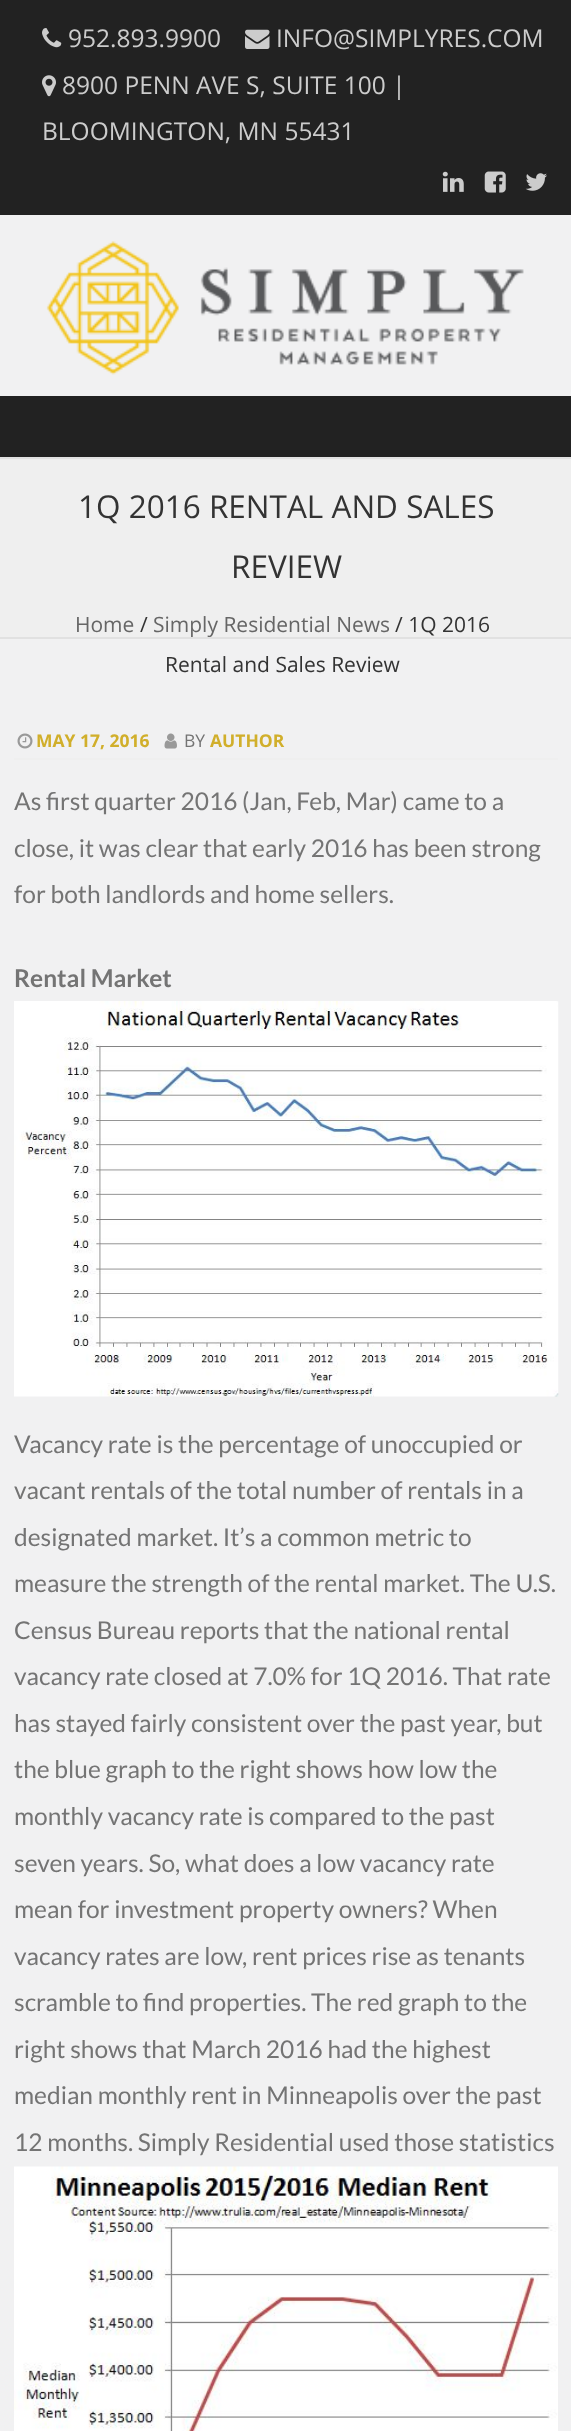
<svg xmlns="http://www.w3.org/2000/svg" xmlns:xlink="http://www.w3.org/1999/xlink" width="571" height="2431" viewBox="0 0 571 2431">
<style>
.cls-1{font:24.5px Open Sans;fill:#cccccc}
.cls-2{font:31.5px Open Sans;fill:#333333}
.cls-3{font:21px Open Sans;fill:#666666}
.cls-4{font:21px Open Sans;fill:#333333}
.cls-5{font:bold 17.5px Open Sans;fill:#d1af2b}
.cls-6{font:17.5px Open Sans;fill:#747474}
.cls-7{font:24.5px Lato;fill:#747474}
.cls-8{font:bold 24.5px Lato;fill:#747474}
</style>
<rect width="100%" height="100%" fill="#f1f1f2"/>
<rect fill="#222222" x="0" y="0" width="571" height="215"/>
<image xlink:href="image0.png" x="42" y="28" width="20" height="20"/>
<image xlink:href="image1.png" x="245" y="29" width="25" height="20"/>
<image xlink:href="image2.png" x="42" y="75" width="14" height="22"/>
<image xlink:href="image3.png" x="442" y="171" width="22" height="21"/>
<image xlink:href="image4.png" x="484" y="171" width="22" height="22"/>
<image xlink:href="image5.png" x="525" y="173" width="22" height="18"/>
<image xlink:href="image6.png" x="46" y="241" width="478" height="134"/>
<rect fill="#222222" x="0" y="396" width="571" height="61"/>
<rect fill="#efefef" x="0" y="459" width="571" height="178"/>
<rect fill="#e1e1e1" x="0" y="457" width="571" height="2"/>
<rect fill="#e1e1e1" x="0" y="637" width="571" height="2"/>
<rect fill="#efefef" x="14" y="758" width="544" height="2"/>
<image xlink:href="image7.png" x="17" y="733" width="16" height="16"/>
<image xlink:href="image8.png" x="164" y="733" width="13" height="16"/>
<image xlink:href="image9.png" x="14" y="1001" width="545" height="396"/>
<image xlink:href="image10.png" x="14" y="2166" width="544" height="265"/>
<text class="cls-1" x="68" y="47">952.893.9900</text>
<text class="cls-1" x="276" y="47">INFO@SIMPLYRES.COM</text>
<text class="cls-1" x="62" y="94">8900 PENN AVE S, SUITE 100 |</text>
<text class="cls-1" x="42" y="140">BLOOMINGTON, MN 55431</text>
<text class="cls-2" x="78" y="518">1Q 2016 RENTAL AND SALES</text>
<text class="cls-2" x="231" y="578">REVIEW</text>
<text class="cls-3" x="75" y="632">Home</text>
<text class="cls-4" x="140" y="632">/</text>
<text class="cls-3" x="153" y="632">Simply Residential News</text>
<text class="cls-4" x="395" y="632">/ 1Q 2016</text>
<text class="cls-4" x="165" y="672">Rental and Sales Review</text>
<text class="cls-5" x="36" y="747">MAY 17, 2016</text>
<text class="cls-6" x="184" y="747">BY</text>
<text class="cls-5" x="210" y="747">AUTHOR</text>
<text class="cls-7"><tspan x="14" y="810">As first quarter 2016 (Jan, Feb, Mar) came to a</tspan><tspan x="14" y="857">close, it was clear that early 2016 has been strong</tspan><tspan x="14" y="903">for both landlords and home sellers.</tspan></text>
<text class="cls-8" x="14" y="987">Rental Market</text>
<text class="cls-7"><tspan x="14" y="1453">Vacancy rate is the percentage of unoccupied or</tspan><tspan x="14" y="1499">vacant rentals of the total number of rentals in a</tspan><tspan x="14" y="1546">designated market. It’s a common metric to</tspan><tspan x="14" y="1592">measure the strength of the rental market. The U.S.</tspan><tspan x="14" y="1639">Census Bureau reports that the national rental</tspan><tspan x="14" y="1685">vacancy rate closed at 7.0% for 1Q 2016. That rate</tspan><tspan x="14" y="1732">has stayed fairly consistent over the past year, but</tspan><tspan x="14" y="1778">the blue graph to the right shows how low the</tspan><tspan x="14" y="1825">monthly vacancy rate is compared to the past</tspan><tspan x="14" y="1872">seven years. So, what does a low vacancy rate</tspan><tspan x="14" y="1918">mean for investment property owners? When</tspan><tspan x="14" y="1965">vacancy rates are low, rent prices rise as tenants</tspan><tspan x="14" y="2011">scramble to find properties. The red graph to the</tspan><tspan x="14" y="2058">right shows that March 2016 had the highest</tspan><tspan x="14" y="2104">median monthly rent in Minneapolis over the past</tspan><tspan x="14" y="2151">12 months. Simply Residential used those statistics</tspan></text>
</svg>
